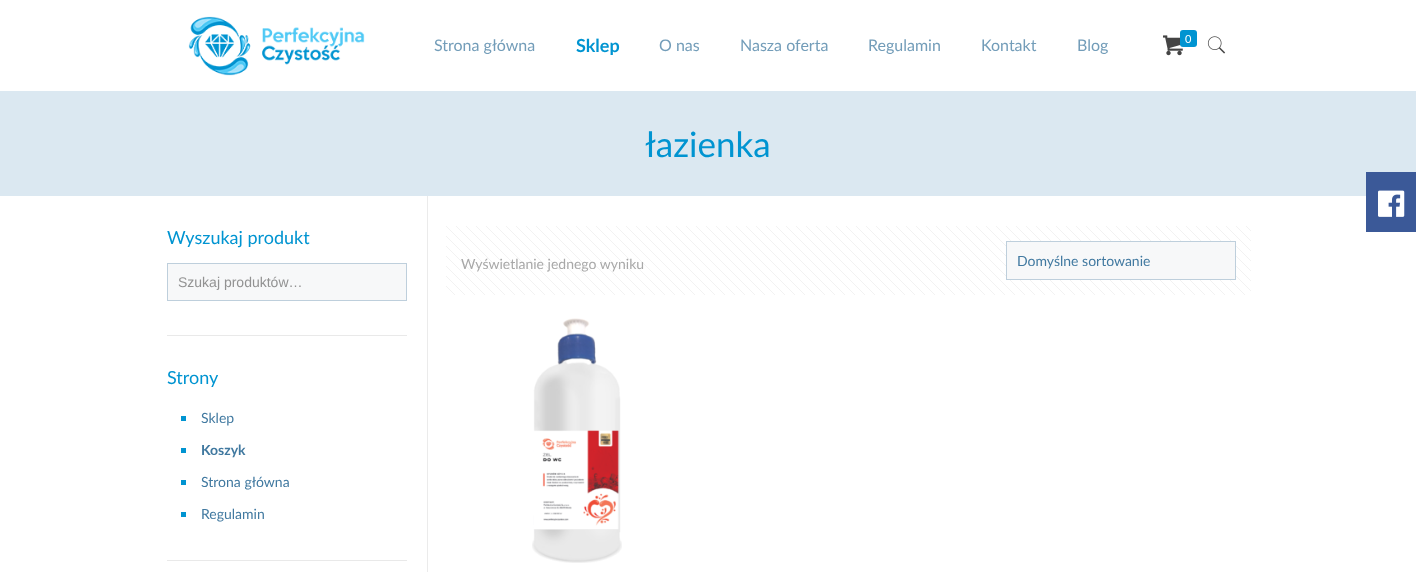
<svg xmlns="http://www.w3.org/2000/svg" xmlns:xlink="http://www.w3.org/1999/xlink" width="1416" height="572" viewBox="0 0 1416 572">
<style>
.cls-1{font:16px Lato;fill:#739db9}
.cls-2{font:bold 18px Lato;fill:#0094d1}
.cls-3{font:11px Lato;fill:#ffffff}
.cls-4{font:35px Lato;fill:#0094d1}
.cls-5{font:18px Lato;fill:#0094d1}
.cls-6{font:14px Liberation Sans;fill:#929292}
.cls-7{font:14px Lato;fill:#4179a0}
.cls-8{font:bold 14px Lato;fill:#4179a0}
.cls-9{font:14px Lato;fill:#a8a8a8}
</style>
<rect width="100%" height="100%" fill="#ffffff"/>
<image xlink:href="image0.png" x="188" y="16" width="177" height="60"/>
<image xlink:href="image1.png" x="1163" y="35" width="20" height="21"/>
<rect fill="#0094d1" x="1180" y="30" width="17" height="17" rx="3"/>
<image xlink:href="image2.png" x="1207" y="36" width="19" height="18"/>
<rect fill="#dbe8f1" x="0" y="91" width="1416" height="105"/>
<rect fill="#ebebeb" x="427" y="196" width="1" height="376"/>
<rect fill="#f7f8f9" stroke="#becfdc" x="167.5" y="263.5" width="239" height="37"/>
<rect fill="#e9e9e9" x="167" y="335" width="240" height="1"/>
<rect fill="#0094d1" x="181" y="416" width="5" height="5"/>
<rect fill="#0094d1" x="181" y="448" width="5" height="5"/>
<rect fill="#0094d1" x="181" y="480" width="5" height="5"/>
<rect fill="#0094d1" x="181" y="512" width="5" height="5"/>
<rect fill="#e9e9e9" x="167" y="560" width="240" height="1"/>
<image xlink:href="image3.png" x="446" y="226" width="805" height="69"/>
<rect fill="#f7f8f9" stroke="#becfdc" x="1006.5" y="241.5" width="229" height="38"/>
<image xlink:href="image4.png" x="532" y="318" width="90" height="245"/>
<rect fill="#3b5998" x="1366" y="172" width="50" height="60"/>
<image xlink:href="image5.png" x="1378" y="190" width="27" height="27"/>
<text class="cls-1" x="434" y="51">Strona główna</text>
<text class="cls-2" x="576" y="52">Sklep</text>
<text class="cls-1" x="659" y="51">O nas</text>
<text class="cls-1" x="740" y="51">Nasza oferta</text>
<text class="cls-1" x="868" y="51">Regulamin</text>
<text class="cls-1" x="981" y="51">Kontakt</text>
<text class="cls-1" x="1077" y="51">Blog</text>
<text class="cls-3" x="1185" y="43">0</text>
<text class="cls-4" x="645" y="157">łazienka</text>
<text class="cls-5" x="167" y="244">Wyszukaj produkt</text>
<text class="cls-6" x="178" y="287">Szukaj produktów…</text>
<text class="cls-5" x="167" y="384">Strony</text>
<text class="cls-7" x="201" y="423">Sklep</text>
<text class="cls-8" x="201" y="455">Koszyk</text>
<text class="cls-7" x="201" y="487">Strona główna</text>
<text class="cls-7" x="201" y="519">Regulamin</text>
<text class="cls-9" x="461" y="269">Wyświetlanie jednego wyniku</text>
<text class="cls-7" x="1017" y="266">Domyślne sortowanie</text>
</svg>
